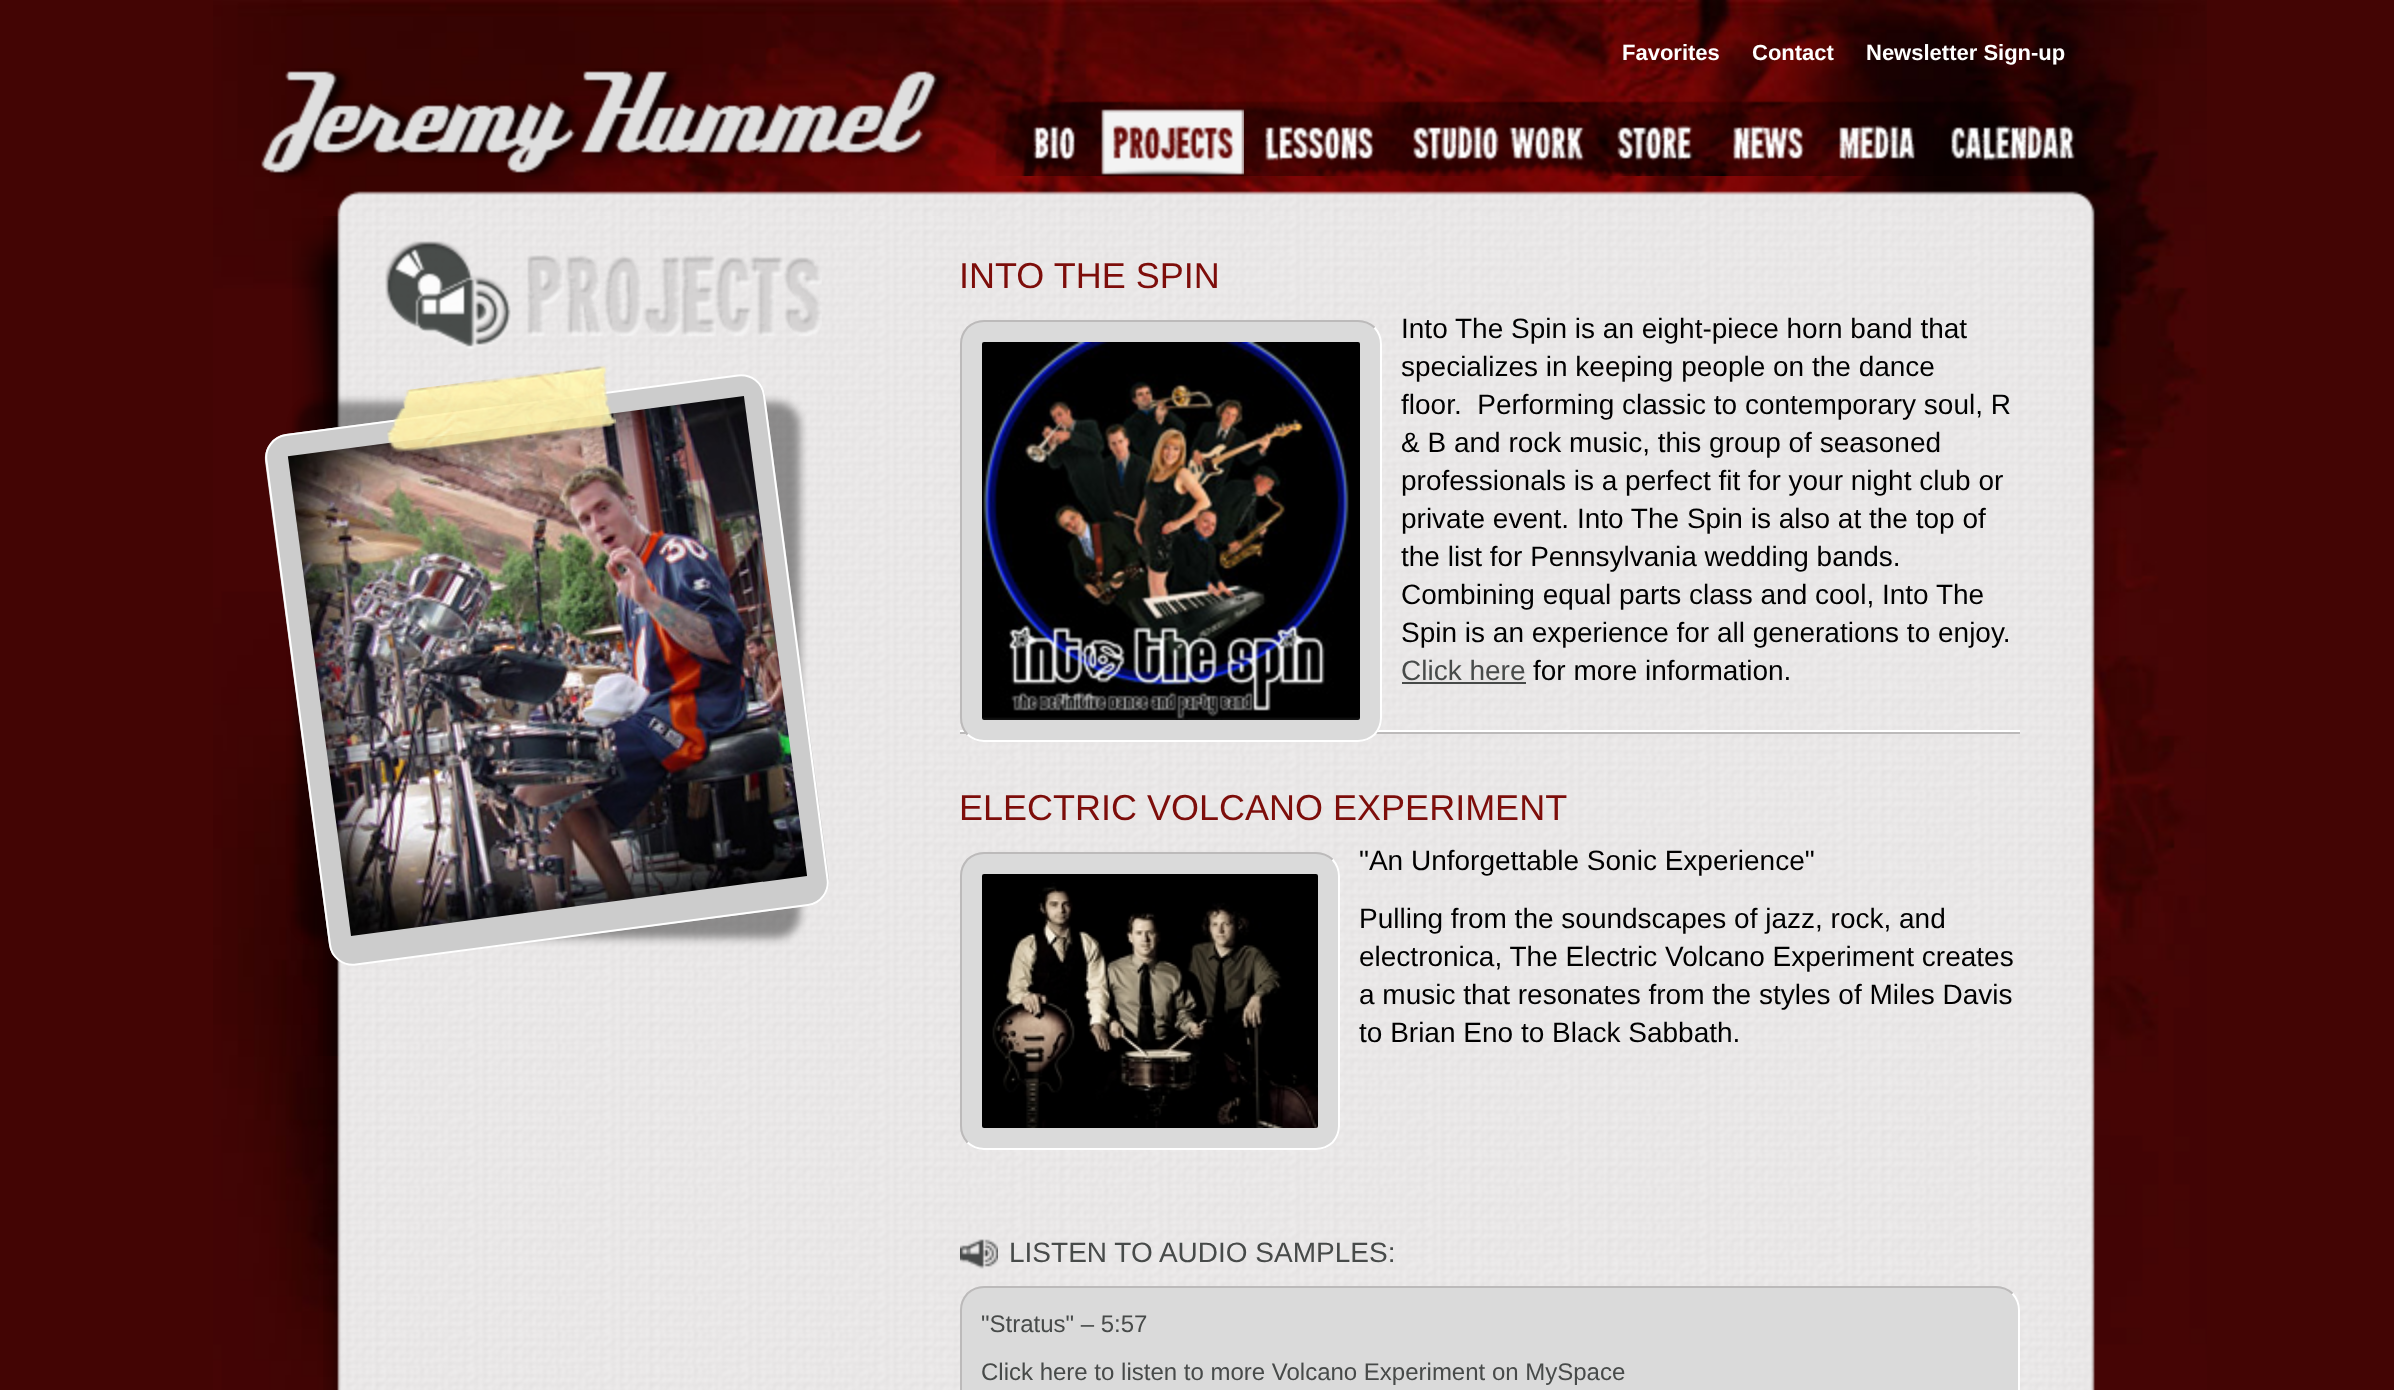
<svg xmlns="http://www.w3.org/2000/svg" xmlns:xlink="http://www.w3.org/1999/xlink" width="2394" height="1390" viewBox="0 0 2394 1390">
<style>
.cls-1{font:bold 22px Liberation Sans;fill:#ffffff}
.cls-2{font:36px Liberation Sans;fill:#7d0d0a}
.cls-3{font:28px Liberation Sans;fill:#000000}
.cls-4{font:28px Liberation Sans;fill:#474a49}
.cls-5{font:24px Liberation Sans;fill:#474a49}
</style>
<rect width="100%" height="100%" fill="#430504"/>
<image xlink:href="image0.png" x="213" y="0" width="1994" height="1390"/>
<image xlink:href="image1.png" x="261" y="68" width="687" height="112"/>
<image xlink:href="image2.png" x="995" y="101" width="1067" height="75"/>
<image xlink:href="image3.png" x="1033" y="125" width="42" height="36"/>
<image xlink:href="image4.png" x="1096" y="109" width="148" height="68"/>
<image xlink:href="image5.png" x="1265" y="125" width="110" height="36"/>
<image xlink:href="image6.png" x="1413" y="125" width="172" height="36"/>
<image xlink:href="image7.png" x="1617" y="125" width="76" height="36"/>
<image xlink:href="image8.png" x="1732" y="125" width="73" height="36"/>
<image xlink:href="image9.png" x="1839" y="125" width="76" height="36"/>
<image xlink:href="image10.png" x="1951" y="125" width="124" height="36"/>
<image xlink:href="image11.png" x="292" y="218" width="1829" height="838"/>
<image xlink:href="image12.png" x="337" y="191" width="1758" height="25"/>
<image xlink:href="image13.png" x="323" y="216" width="1772" height="1174"/>
<image xlink:href="image14.png" x="385" y="241" width="437" height="108"/>
<rect fill="#ffffff" x="960" y="730" width="1060" height="2"/>
<rect fill="#bcbaba" x="960" y="732" width="1060" height="2"/>
<rect fill="#dadada" x="960" y="320" width="422" height="422" rx="24"/>
<path fill="none" stroke="#ffffff" stroke-width="2" d="M1374.5 327.5C1378.5 332 1381 338 1381 344V718C1381 724 1378.5 730 1374.5 734.5C1370 738.5 1364 741 1358 741H984C978 741 972 738.5 967.5 734.5"/>
<path fill="none" stroke="#bcbaba" stroke-width="2" d="M967.5 734.5C963.5 730 961 724 961 718V344C961 338 963.5 332 967.5 327.5C972 323.5 978 321 984 321H1358C1364 321 1370 323.5 1374.5 327.5"/>
<image xlink:href="image15.png" x="982" y="342" width="378" height="378"/>
<rect fill="#474a49" x="1402" y="682" width="124" height="2"/>
<rect fill="#dadada" x="960" y="852" width="380" height="298" rx="24"/>
<path fill="none" stroke="#ffffff" stroke-width="2" d="M1332.5 859.5C1336.5 864 1339 870 1339 876V1126C1339 1132 1336.5 1138 1332.5 1142.5C1328 1146.5 1322 1149 1316 1149H984C978 1149 972 1146.5 967.5 1142.5"/>
<path fill="none" stroke="#bcbaba" stroke-width="2" d="M967.5 1142.5C963.5 1138 961 1132 961 1126V876C961 870 963.5 864 967.5 859.5C972 855.5 978 853 984 853H1316C1322 853 1328 855.5 1332.5 859.5"/>
<image xlink:href="image16.png" x="982" y="874" width="336" height="254"/>
<image xlink:href="image17.png" x="960" y="1239" width="38" height="30"/>
<rect fill="#dadada" x="960" y="1286" width="1060" height="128" rx="24"/>
<path fill="none" stroke="#ffffff" stroke-width="2" d="M2012.5 1293.5C2016.5 1298 2019 1304 2019 1310V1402C2019 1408 2016.5 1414 2012.5 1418.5C2008 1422.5 2002 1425 1996 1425H984C978 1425 972 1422.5 967.5 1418.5"/>
<path fill="none" stroke="#bcbaba" stroke-width="2" d="M967.5 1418.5C963.5 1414 961 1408 961 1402V1310C961 1304 963.5 1298 967.5 1293.5C972 1289.5 978 1287 984 1287H1996C2002 1287 2008 1289.5 2012.5 1293.5"/>
<rect fill="#000000" fill-opacity="0.4" filter="blur(4px)" x="296" y="402" width="504" height="536" rx="24"/>
<path fill="#cccccc" d="M286 434L738 375C751 373 763 382 765 395L829 879C830 892 821 904 808 906L356 965C343 967 331 958 329 945L265 461C264 448 273 436 286 434Z"/>
<path fill="none" stroke="#ffffff" stroke-width="2" d="M286 435L738 375.5C751 374 762.5 382.5 764 395.5L827.5 879C829.5 891.5 820.5 903.5 808 905L356 964.5C343 966 331.5 957.5 330 944.5L266.5 461C264.5 448.5 273.5 436.5 286 435Z"/>
<image xlink:href="image19.png" x="287" y="396" width="520" height="540"/>
<image xlink:href="image18.png" x="387" y="365" width="230" height="88"/>
<text class="cls-1" x="1622" y="60">Favorites</text>
<text class="cls-1" x="1752" y="60">Contact</text>
<text class="cls-1" x="1866" y="60">Newsletter Sign-up</text>
<text class="cls-2" x="959" y="288">INTO THE SPIN</text>
<text class="cls-3" xml:space="preserve"><tspan x="1401" y="338">Into The Spin is an eight-piece horn band that</tspan><tspan x="1401" y="376">specializes in keeping people on the dance</tspan><tspan x="1401" y="414">floor.  Performing classic to contemporary soul, R</tspan><tspan x="1401" y="452">&amp; B and rock music, this group of seasoned</tspan><tspan x="1401" y="490">professionals is a perfect fit for your night club or</tspan><tspan x="1401" y="528">private event. Into The Spin is also at the top of</tspan><tspan x="1401" y="566">the list for Pennsylvania wedding bands.</tspan><tspan x="1401" y="604">Combining equal parts class and cool, Into The</tspan><tspan x="1401" y="642">Spin is an experience for all generations to enjoy.</tspan></text>
<text class="cls-4" x="1401" y="680">Click here</text>
<text class="cls-3" x="1533" y="680">for more information.</text>
<text class="cls-2" x="959" y="820">ELECTRIC VOLCANO EXPERIMENT</text>
<text class="cls-3" x="1359" y="870">"An Unforgettable Sonic Experience"</text>
<text class="cls-3"><tspan x="1359" y="928">Pulling from the soundscapes of jazz, rock, and</tspan><tspan x="1359" y="966">electronica, The Electric Volcano Experiment creates</tspan><tspan x="1359" y="1004">a music that resonates from the styles of Miles Davis</tspan><tspan x="1359" y="1042">to Brian Eno to Black Sabbath.</tspan></text>
<text class="cls-4" x="1009" y="1262">LISTEN TO AUDIO SAMPLES:</text>
<text class="cls-5" x="981" y="1332">"Stratus" – 5:57</text>
<text class="cls-5" x="981" y="1380">Click here to listen to more Volcano Experiment on MySpace</text>
</svg>
